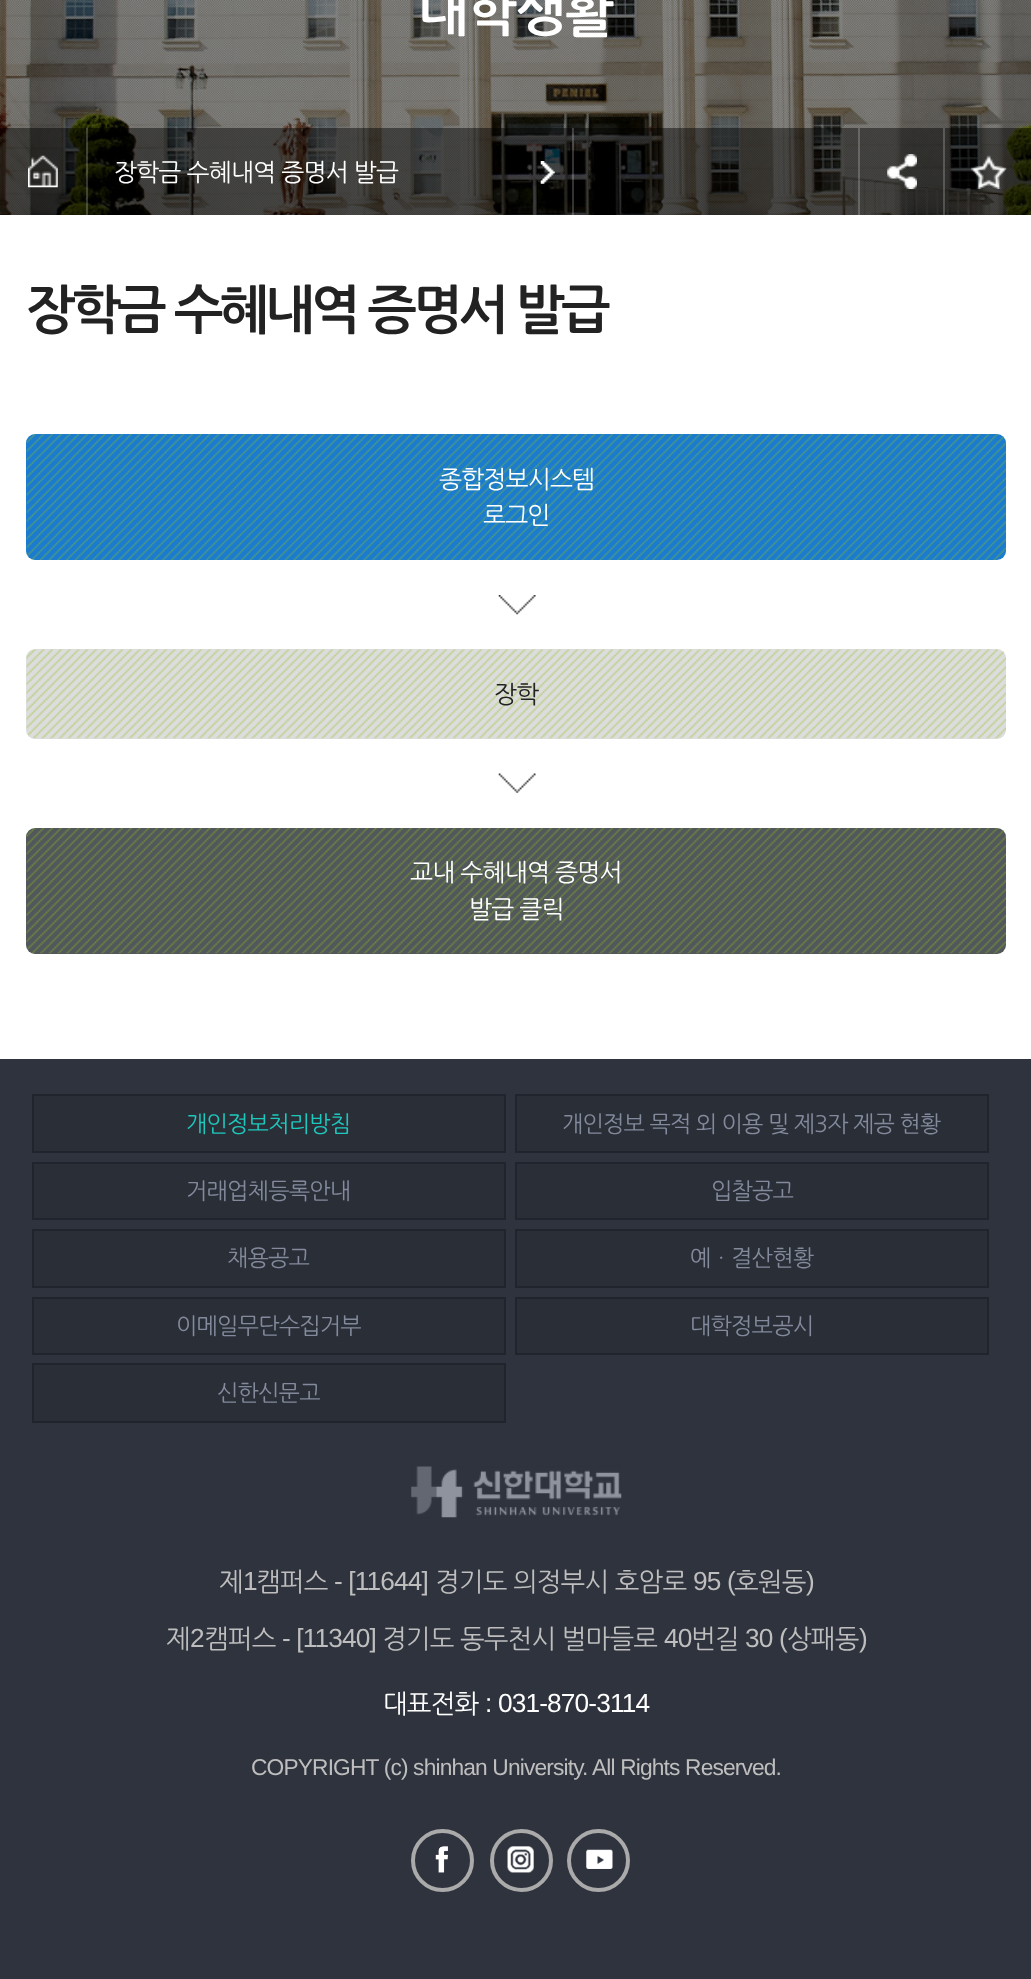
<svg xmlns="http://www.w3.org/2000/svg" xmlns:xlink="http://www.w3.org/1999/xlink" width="1031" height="1979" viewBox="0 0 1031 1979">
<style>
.cls-1{font:bold 52.5px NanumGothic;letter-spacing:-0.85px;fill:#ffffff}
.cls-2{font:24.5px NanumGothic;letter-spacing:-0.85px;fill:#ffffff}
.cls-3{font:bold 52.5px NanumGothic;letter-spacing:-3.7px;fill:#222222}
.cls-4{font:24.5px NanumGothic;letter-spacing:-0.85px;fill:#222222}
.cls-5{font:22.75px NanumGothic;letter-spacing:-0.85px;fill:#1dc8bd}
.cls-6{font:22.75px NanumGothic;letter-spacing:-0.85px;fill:#828a9c}
.cls-7{font:26.25px NanumGothic;letter-spacing:-0.85px;fill:#bebebe}
.cls-8{font:26.25px Liberation Sans;letter-spacing:-0.85px;fill:#bebebe}
.cls-9{font:26.25px NanumGothic;letter-spacing:-0.85px;fill:#ffffff}
.cls-10{font:26.25px Liberation Sans;letter-spacing:-0.85px;fill:#ffffff}
.cls-11{font:22.75px Liberation Sans;letter-spacing:-0.85px;fill:#bebebe}
</style>
<rect width="100%" height="100%" fill="#ffffff"/>
<image xlink:href="image0.png" x="0" y="0" width="1031" height="215"/>
<rect fill="#000000" fill-opacity="0.45" x="0" y="128" width="1031" height="87"/>
<image xlink:href="image1.png" x="28" y="155" width="30" height="33"/>
<rect fill="#ffffff" fill-opacity="0.2" x="86" y="128" width="2" height="87"/>
<rect fill="#ffffff" fill-opacity="0.2" x="572" y="128" width="2" height="87"/>
<image xlink:href="image2.png" x="540" y="161" width="15" height="23"/>
<image xlink:href="image3.png" x="887" y="154" width="30" height="35"/>
<rect fill="#ffffff" fill-opacity="0.2" x="943" y="128" width="2" height="87"/>
<rect fill="#ffffff" fill-opacity="0.2" x="858" y="128" width="2" height="87"/>
<image xlink:href="image4.png" x="971" y="155" width="36" height="34"/>
<rect fill="#1a7bd0" x="26" y="434" width="980" height="126" rx="9"/>
<image xlink:href="image5.png" x="26" y="434" width="980" height="126"/>
<image xlink:href="image6.png" x="498" y="595" width="38" height="20"/>
<rect fill="#dddddd" x="26" y="649" width="980" height="90" rx="9"/>
<image xlink:href="image7.png" x="26" y="649" width="980" height="90"/>
<image xlink:href="image8.png" x="498" y="773" width="38" height="20"/>
<rect fill="#52575c" x="26" y="828" width="980" height="126" rx="9"/>
<image xlink:href="image9.png" x="26" y="828" width="980" height="126"/>
<rect fill="#2f333d" x="0" y="1059" width="1031" height="920"/>
<rect fill="#2a2e37" stroke="#20242c" stroke-width="2" x="33" y="1095" width="472" height="57"/>
<rect fill="#2a2e37" stroke="#20242c" stroke-width="2" x="516" y="1095" width="472" height="57"/>
<rect fill="#2a2e37" stroke="#20242c" stroke-width="2" x="33" y="1163" width="472" height="56"/>
<rect fill="#2a2e37" stroke="#20242c" stroke-width="2" x="516" y="1163" width="472" height="56"/>
<rect fill="#2a2e37" stroke="#20242c" stroke-width="2" x="33" y="1230" width="472" height="57"/>
<rect fill="#2a2e37" stroke="#20242c" stroke-width="2" x="516" y="1230" width="472" height="57"/>
<rect fill="#2a2e37" stroke="#20242c" stroke-width="2" x="33" y="1298" width="472" height="56"/>
<rect fill="#2a2e37" stroke="#20242c" stroke-width="2" x="516" y="1298" width="472" height="56"/>
<rect fill="#2a2e37" stroke="#20242c" stroke-width="2" x="33" y="1364" width="472" height="58"/>
<image xlink:href="image10.png" x="411" y="1466" width="211" height="52"/>
<image xlink:href="image11.png" x="435" y="1846" width="13" height="27"/>
<circle fill="none" stroke="#aaaaaa" stroke-width="4" cx="442.5" cy="1860.5" r="29.5"/>
<image xlink:href="image12.png" x="507" y="1846" width="27" height="27"/>
<circle fill="none" stroke="#aaaaaa" stroke-width="4" cx="521.5" cy="1860.5" r="29.5"/>
<image xlink:href="image13.png" x="586" y="1849" width="27" height="20"/>
<circle fill="none" stroke="#aaaaaa" stroke-width="4" cx="598.5" cy="1860.5" r="29.5"/>
<text class="cls-1" x="419" y="28">대학생활</text>
<text class="cls-2" x="114" y="180">장학금 수혜내역 증명서 발급</text>
<text class="cls-3" x="26" y="326">장학금 수혜내역 증명서 발급</text>
<text class="cls-2" x="439" y="487">종합정보시스템</text>
<text class="cls-2" x="483" y="523">로그인</text>
<text class="cls-4" x="494" y="702">장학</text>
<text class="cls-2" x="410" y="880">교내 수혜내역 증명서</text>
<text class="cls-2" x="469" y="917">발급 클릭</text>
<text class="cls-5" x="186" y="1131">개인정보처리방침</text>
<text class="cls-6" x="562" y="1131" word-spacing="-0.25">개인정보 목적 외 이용 및 제3자 제공 현황</text>
<text class="cls-6" x="186" y="1198">거래업체등록안내</text>
<text class="cls-6" x="711" y="1198">입찰공고</text>
<text class="cls-6" x="227" y="1265">채용공고</text>
<text class="cls-6" x="690" y="1265">예ㆍ결산현황</text>
<text class="cls-6" x="176" y="1333">이메일무단수집거부</text>
<text class="cls-6" x="690" y="1333">대학정보공시</text>
<text class="cls-6" x="217" y="1400">신한신문고</text>
<text class="cls-7" x="219" y="1590">제</text>
<text class="cls-8" x="243" y="1590">1</text>
<text class="cls-7" x="256" y="1590">캠퍼스</text>
<text class="cls-8" x="334" y="1590">- [11644]</text>
<text class="cls-7" x="435" y="1590">경기도 의정부시 호암로</text>
<text class="cls-8" x="693" y="1590">95 (</text>
<text class="cls-7" x="734" y="1590">호원동</text>
<text class="cls-8" x="806" y="1590">)</text>
<text class="cls-7" x="166" y="1647">제</text>
<text class="cls-8" x="190" y="1647">2</text>
<text class="cls-7" x="204" y="1647">캠퍼스</text>
<text class="cls-8" x="282" y="1647">- [11340]</text>
<text class="cls-7" x="382" y="1647">경기도 동두천시 벌마들로</text>
<text class="cls-8" x="664" y="1647">40</text>
<text class="cls-7" x="691" y="1647">번길</text>
<text class="cls-8" x="745" y="1647">30 (</text>
<text class="cls-7" x="787" y="1647">상패동</text>
<text class="cls-8" x="859" y="1647">)</text>
<text class="cls-9" x="383" y="1712">대표전화</text>
<text class="cls-10" x="485" y="1712">: 031-870-3114</text>
<text class="cls-11" x="251" y="1775">COPYRIGHT (c) shinhan University.</text>
<text class="cls-11" x="592" y="1775">All Rights Reserved.</text>
</svg>
